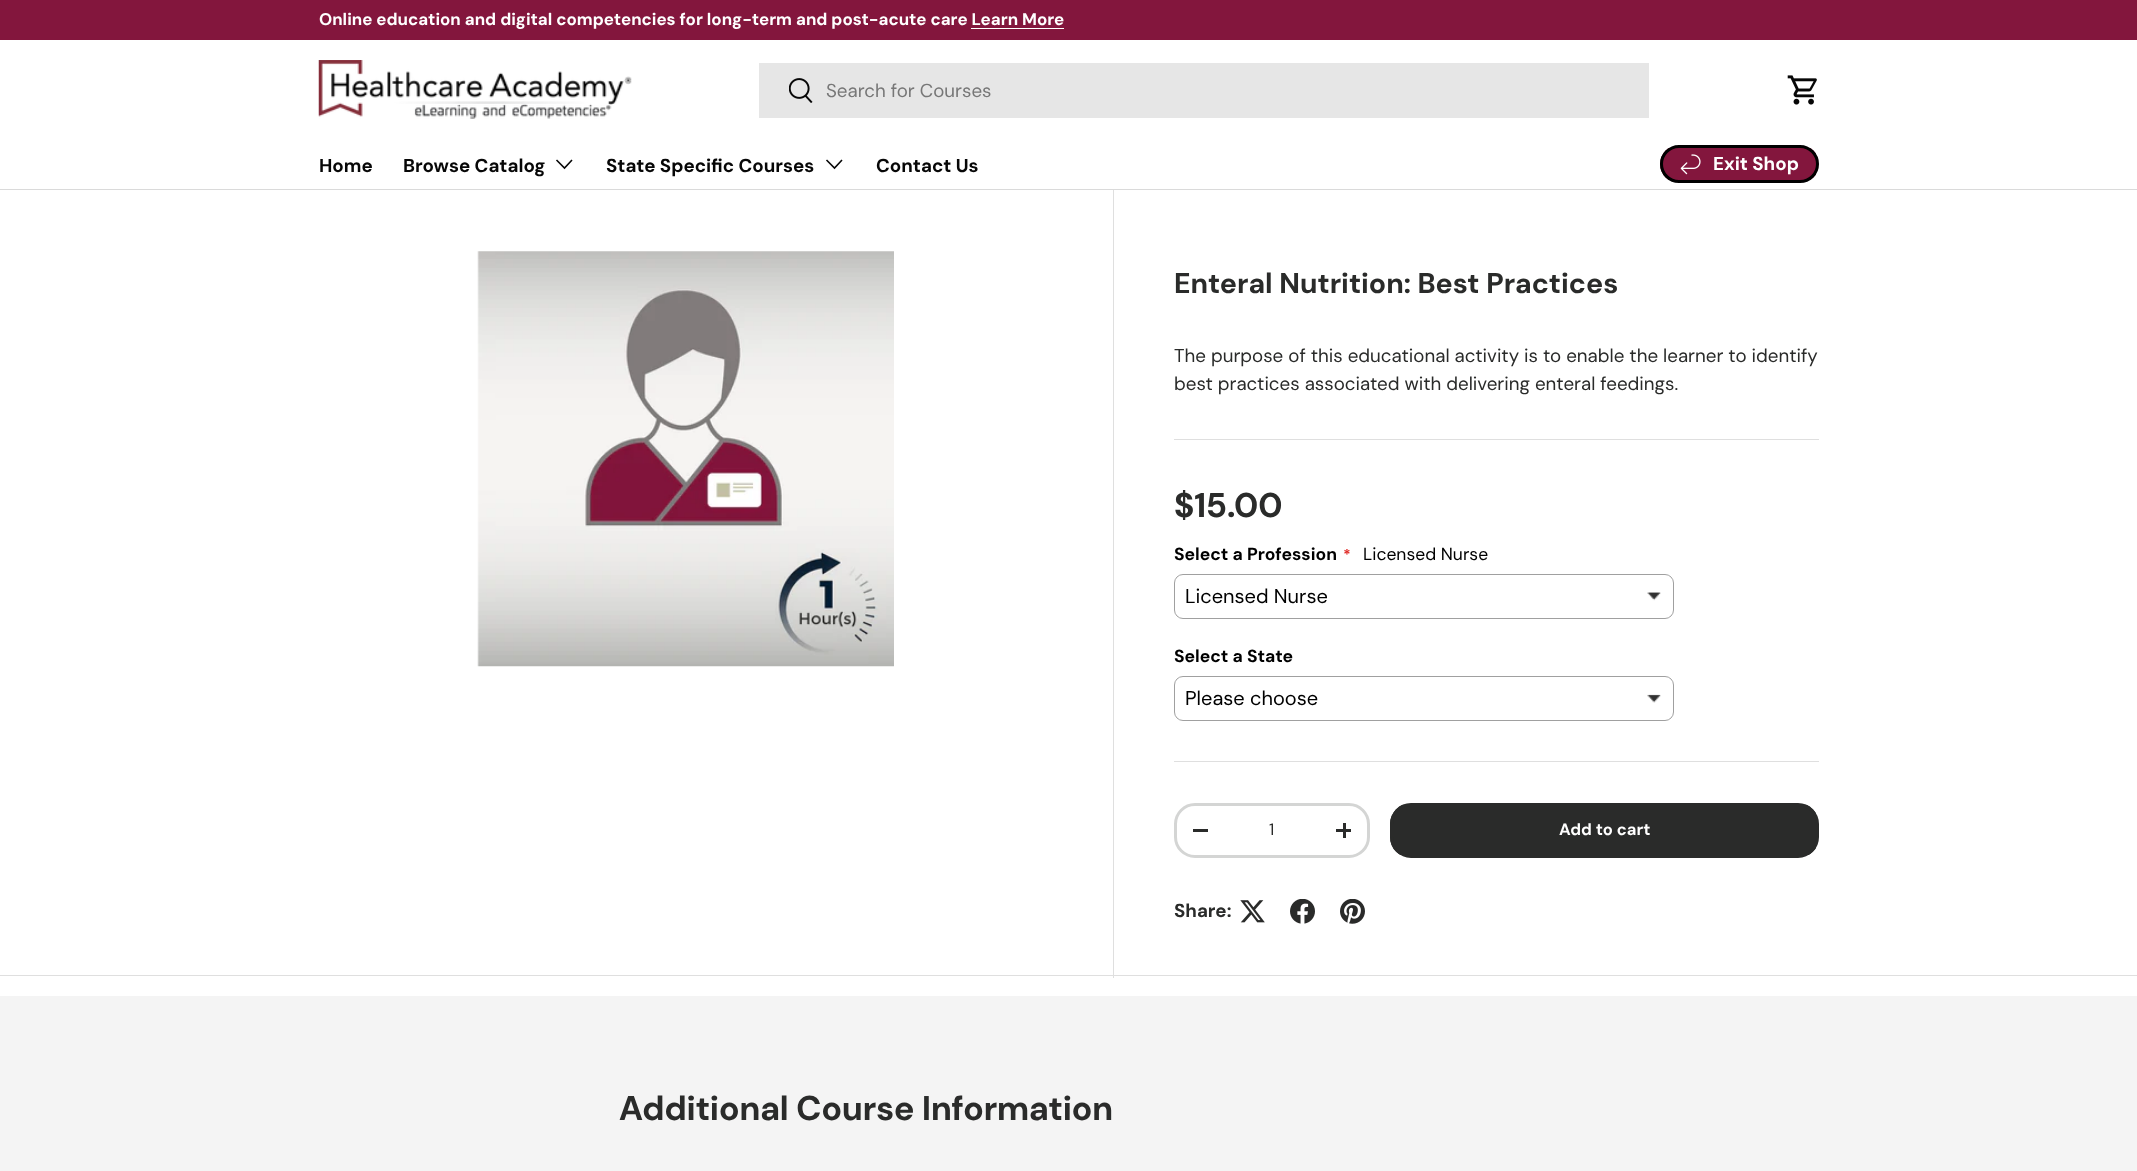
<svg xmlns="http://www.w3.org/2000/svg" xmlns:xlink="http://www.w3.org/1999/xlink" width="2137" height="1171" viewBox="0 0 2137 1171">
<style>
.cls-1{font:bold 16.9px 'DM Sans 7';fill:#ffffff}
.cls-2{font:18.75px DM Sans;fill:#777777}
.cls-3{font:bold 18.75px 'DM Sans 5';fill:#070707}
.cls-4{font:bold 18.75px 'DM Sans 5';fill:#ffffff}
.cls-5{font:bold 28.5px DM Sans;fill:#2a2b2a}
.cls-6{font:18.75px DM Sans;fill:#2a2b2a}
.cls-7{font:bold 34.25px 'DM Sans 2';fill:#2a2b2a}
.cls-8{font:bold 17.5px 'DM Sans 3';fill:#000000}
.cls-9{font:bold 15px 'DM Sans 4';fill:#e02b27}
.cls-10{font:17.5px 'DM Sans 2';fill:#000000}
.cls-11{font:20px 'DM Sans 4';fill:#000000}
.cls-12{font:16.5px 'DM Sans 3';fill:#2a2b2a}
.cls-13{font:bold 16.5px 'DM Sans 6';fill:#ffffff}
.cls-14{font:bold 18.75px 'DM Sans 5';fill:#2a2b2a}
</style>
<defs>
<clipPath id="clip1"><rect x="1660" y="145" width="159" height="38" rx="19"/></clipPath>
<linearGradient id="g1" gradientUnits="userSpaceOnUse" x1="1365" y1="109" x2="1807" y2="219"><stop offset="0.6" stop-color="#a13d61"/><stop offset="0.6" stop-color="#83163d"/><stop offset="1" stop-color="#83163d"/></linearGradient>
<clipPath id="clip2"><rect x="1390" y="803" width="429" height="55" rx="21"/></clipPath>
<linearGradient id="g2" gradientUnits="userSpaceOnUse" x1="576" y1="679" x2="1785" y2="981"><stop offset="0.6" stop-color="#525352"/><stop offset="0.6" stop-color="#2a2b2a"/><stop offset="1" stop-color="#2a2b2a"/></linearGradient>
</defs>
<rect width="100%" height="100%" fill="#ffffff"/>
<rect fill="#83163d" x="0" y="0" width="2137" height="40"/>
<rect fill="#ffffff" x="971" y="28" width="93" height="1"/>
<rect fill="#dadada" x="0" y="189" width="2137" height="1"/>
<image xlink:href="image0.png" x="318" y="60" width="314" height="59"/>
<rect fill="#e6e6e6" x="759" y="63" width="890" height="55"/>
<image xlink:href="image1.png" x="789" y="78" width="24" height="25"/>
<image xlink:href="image2.png" x="1787" y="75" width="30" height="30"/>
<path fill="none" stroke="#070707" stroke-width="1.6" d="M572 160L564.5 168L556.5 160"/>
<path fill="none" stroke="#070707" stroke-width="1.6" d="M842 160L834.5 168L826.5 160"/>
<g clip-path="url(#clip1)">
<rect fill="url(#g1)" x="1660" y="148" width="156" height="32"/>
</g>
<rect fill="none" stroke="#000000" stroke-width="3" x="1661.5" y="146.5" width="156" height="35" rx="17.5"/>
<image xlink:href="image3.png" x="1680" y="154" width="21" height="21"/>
<image xlink:href="image4.png" x="477" y="251" width="417" height="416"/>
<rect fill="#dfdfdf" x="0" y="975" width="2137" height="1"/>
<rect fill="#dfdfdf" x="1113" y="190" width="1" height="788"/>
<rect fill="#dfdfdf" x="1174" y="439" width="645" height="1"/>
<image xlink:href="image5.png" x="1647" y="592" width="14" height="9"/>
<rect fill="none" stroke="#a0a0a0" x="1174.5" y="574.5" width="499" height="44" rx="8.5"/>
<image xlink:href="image6.png" x="1647" y="694" width="14" height="9"/>
<rect fill="none" stroke="#a0a0a0" x="1174.5" y="676.5" width="499" height="44" rx="8.5"/>
<rect fill="#dfdfdf" x="1174" y="761" width="645" height="1"/>
<rect fill="none" stroke="#d4d5d4" stroke-width="3" x="1175.5" y="804.5" width="193" height="52" rx="19.5"/>
<rect fill="#2a2b2a" x="1193" y="829" width="15" height="3"/>
<rect fill="#2a2b2a" x="1336" y="829" width="15" height="3"/>
<rect fill="#2a2b2a" x="1343" y="823" width="3" height="15"/>
<g clip-path="url(#clip2)">
<rect fill="url(#g2)" x="1390" y="805" width="426" height="50"/>
</g>
<rect fill="none" stroke="#2a2b2a" stroke-width="3" x="1391.5" y="804.5" width="426" height="52" rx="19.5"/>
<image xlink:href="image7.png" x="1240" y="900" width="25" height="23"/>
<image xlink:href="image8.png" x="1290" y="899" width="25" height="25"/>
<image xlink:href="image9.png" x="1340" y="899" width="25" height="25"/>
<rect fill="#f4f4f4" x="0" y="996" width="2137" height="175"/>
<text class="cls-1" x="319" y="25">Online education and digital competencies for long-term and post-acute care Learn More</text>
<text class="cls-2" x="826" y="97">Search for Courses</text>
<text class="cls-3" x="319" y="172">Home</text>
<text class="cls-3" x="403" y="172">Browse Catalog</text>
<text class="cls-3" x="606" y="172">State Specific Courses</text>
<text class="cls-3" x="876" y="172">Contact Us</text>
<text class="cls-4" x="1713" y="170">Exit Shop</text>
<text class="cls-5" x="1174" y="293">Enteral Nutrition: Best Practices</text>
<text class="cls-6"><tspan x="1174" y="362">The purpose of this educational activity is to enable the learner to identify</tspan><tspan x="1174" y="390">best practices associated with delivering enteral feedings.</tspan></text>
<text class="cls-7" x="1174" y="517">$15.00</text>
<text class="cls-8" x="1174" y="560">Select a Profession</text>
<text class="cls-9" x="1343" y="560">*</text>
<text class="cls-10" x="1363" y="560">Licensed Nurse</text>
<text class="cls-11" x="1185" y="603">Licensed Nurse</text>
<text class="cls-8" x="1174" y="662">Select a State</text>
<text class="cls-11" x="1185" y="705">Please choose</text>
<text class="cls-12" x="1269" y="835">1</text>
<text class="cls-13" x="1559" y="835">Add to cart</text>
<text class="cls-14" x="1174" y="917">Share:</text>
<text class="cls-7" x="619" y="1120">Additional Course Information</text>
</svg>
